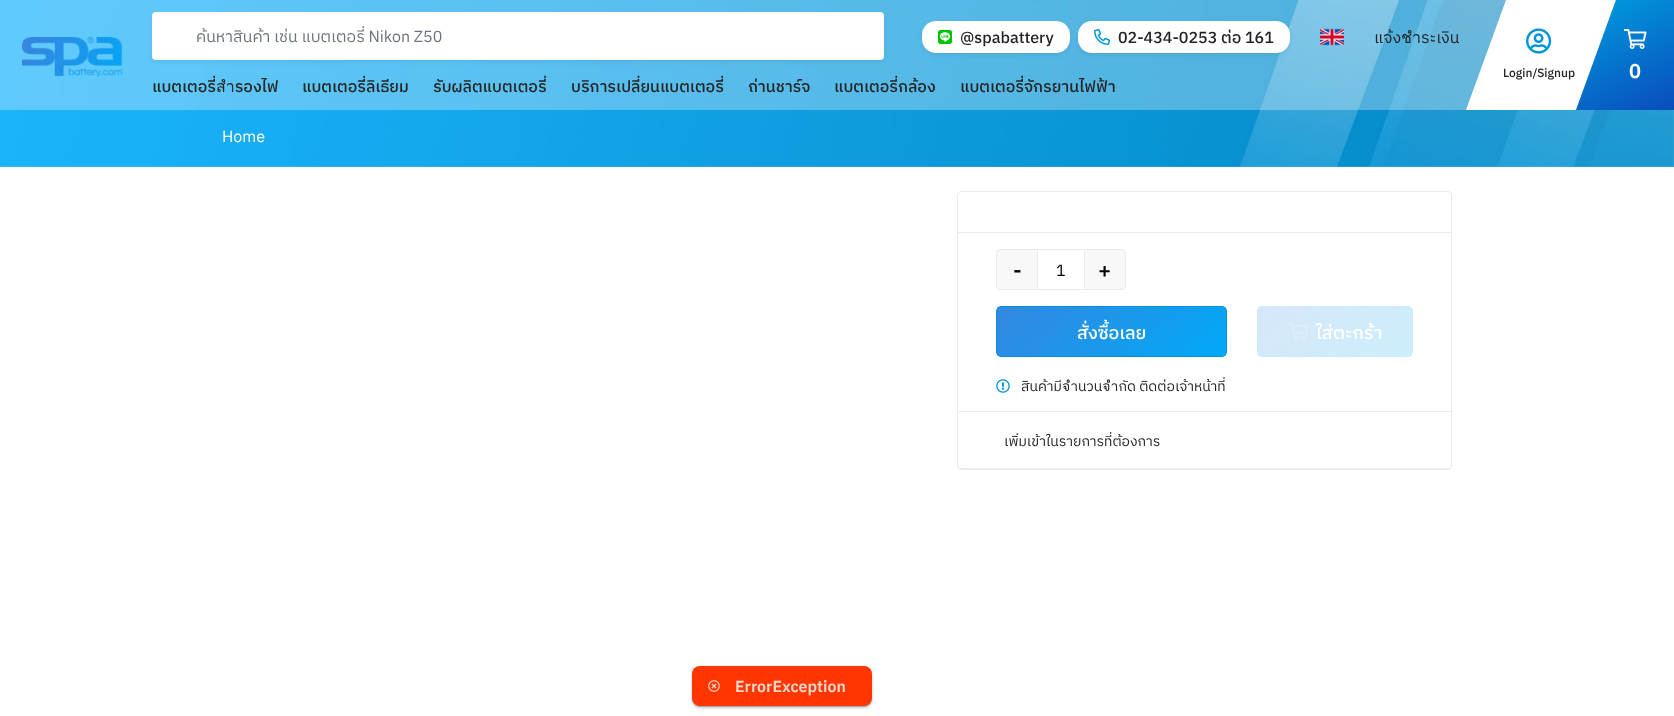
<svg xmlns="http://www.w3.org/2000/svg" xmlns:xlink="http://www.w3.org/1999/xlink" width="1674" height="716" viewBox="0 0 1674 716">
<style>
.cls-1{font:16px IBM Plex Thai;fill:#6c757d}
.cls-2{font:500 16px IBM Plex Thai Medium;fill:#242424}
.cls-3{font:16px IBM Plex Thai;fill:#242424}
.cls-4{font:500 12px IBM Plex Thai Medium;fill:#242424}
.cls-5{font:600 20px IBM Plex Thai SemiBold;fill:#ffffff}
.cls-6{font:16px IBM Plex Thai;fill:#ffffff}
.cls-7{font:500 22px IBM Plex Thai Medium;fill:#000000}
.cls-8{font:16px IBM Plex Thai;fill:#000000}
.cls-9{font:500 18px IBM Plex Thai Medium;fill:#ffffff}
.cls-10{font:14px IBM Plex Thai;fill:#242424}
.cls-11{font:600 16px IBM Plex Thai SemiBold;fill:#ffd7cc}
</style>
<defs>
<linearGradient id="g1" gradientUnits="userSpaceOnUse" x1="1623" y1="-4.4" x2="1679" y2="114"><stop offset="0" stop-color="#0095da"/><stop offset="1" stop-color="#0b49bc"/></linearGradient>
<clipPath id="clip1"><rect x="996" y="306" width="231" height="51" rx="5"/></clipPath>
<linearGradient id="g2" gradientUnits="userSpaceOnUse" x1="1052" y1="261" x2="1171" y2="402"><stop offset="0" stop-color="#3587e0"/><stop offset="1" stop-color="#00a9f7"/></linearGradient>
<clipPath id="clip2"><rect x="1257" y="306" width="156" height="51" rx="5"/></clipPath>
<linearGradient id="g3" gradientUnits="userSpaceOnUse" x1="1291" y1="279" x2="1379" y2="384"><stop offset="0" stop-color="#d7e7f9"/><stop offset="1" stop-color="#cceefd"/></linearGradient>
<clipPath id="clip3"><rect x="196" y="26" width="668" height="20"/></clipPath>
</defs>
<rect width="100%" height="100%" fill="#ffffff"/>
<image xlink:href="image6.png" x="0" y="0" width="1674" height="167"/>
<rect fill="#ffffff" fill-opacity="0.3" x="0" y="0" width="1616" height="110"/>
<image xlink:href="image0.png" x="22" y="37" width="101" height="40"/>
<rect fill="#000000" fill-opacity="0.07" filter="blur(2px)" x="152" y="14" width="732" height="48" rx="4"/>
<rect fill="#ffffff" x="152" y="12" width="732" height="48" rx="4"/>
<rect fill="#000000" fill-opacity="0.07" filter="blur(2px)" x="922" y="23" width="148" height="32" rx="14"/>
<rect fill="#ffffff" x="922" y="21" width="148" height="32" rx="14"/>
<image xlink:href="image1.png" x="938" y="30" width="14" height="14"/>
<rect fill="#000000" fill-opacity="0.07" filter="blur(2px)" x="1078" y="23" width="212" height="32" rx="14"/>
<rect fill="#ffffff" x="1078" y="21" width="212" height="32" rx="14"/>
<image xlink:href="image2.png" x="1094" y="29" width="16" height="16"/>
<image xlink:href="image3.png" x="1320" y="28" width="24" height="18"/>
<path fill="#ffffff" d="M1506 0H1616L1576 110H1466Z"/>
<image xlink:href="image4.png" x="1526" y="28" width="26" height="26"/>
<path fill="url(#g1)" d="M1616 0H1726L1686 110H1576Z"/>
<image xlink:href="image5.png" x="1624" y="29" width="23" height="20"/>
<rect fill="none" stroke="#ebebeb" x="957.5" y="191.5" width="494" height="278" rx="3.5"/>
<rect fill="#ebebeb" x="958" y="232" width="493" height="1"/>
<rect fill="#ebebeb" x="958" y="411" width="493" height="1"/>
<path fill="#f8f8f8" d="M1000 249H1037V290H1000C998 290 996 288 996 286V253C996 251 998 249 1000 249Z"/>
<path fill="#ebebeb" fill-rule="evenodd" d="M1000 249H1037V290H1000C998 290 996 288 996 286V253C996 251 998 249 1000 249ZM1000 250H1037V289H1000C998 289 997 288 997 286V253C997 251 998 250 1000 250Z"/>
<rect fill="none" stroke="#ebebeb" x="1037.5" y="249.5" width="47" height="40"/>
<path fill="#f8f8f8" d="M1085 249H1122C1124 249 1126 251 1126 253V286C1126 288 1124 290 1122 290H1085Z"/>
<path fill="#ebebeb" fill-rule="evenodd" d="M1085 249H1122C1124 249 1126 251 1126 253V286C1126 288 1124 290 1122 290H1085ZM1085 250H1122C1124 250 1125 251 1125 253V286C1125 288 1124 289 1122 289H1085Z"/>
<g clip-path="url(#clip1)">
<rect fill="url(#g2)" x="997" y="307" width="229" height="49"/>
</g>
<rect fill="none" stroke="#0095da" x="996.5" y="306.5" width="230" height="50" rx="4.5"/>
<g clip-path="url(#clip2)">
<rect fill="url(#g3)" x="1258" y="307" width="154" height="49"/>
</g>
<rect fill="none" stroke="#cceaf8" x="1257.5" y="306.5" width="155" height="50" rx="4.5"/>
<image xlink:href="image7.png" x="1288" y="323" width="20" height="18"/>
<image xlink:href="image8.png" x="996" y="379" width="14" height="14"/>
<rect fill="#ebebeb" x="958" y="468" width="493" height="1"/>
<rect fill="#000000" fill-opacity="0.12" filter="blur(1.5px)" x="693" y="670" width="178" height="38" rx="7"/>
<rect fill="#000000" fill-opacity="0.14" filter="blur(0.5px)" x="692" y="667" width="180" height="40" rx="8"/>
<rect fill="#000000" fill-opacity="0.2" filter="blur(1.5px)" x="692" y="667" width="180" height="40" rx="8"/>
<rect fill="#ff3600" x="692" y="666" width="180" height="40" rx="8"/>
<image xlink:href="image9.png" x="708" y="680" width="12" height="12"/>
<g clip-path="url(#clip3)">
<text class="cls-1" x="196" y="42">ค้นหาสินค้า เช่น แบตเตอรี่ Nikon Z50</text>
</g>
<text class="cls-2" x="960" y="43">@spabattery</text>
<text class="cls-2" x="1118" y="43">02-434-0253 ต่อ 161</text>
<text class="cls-3" x="1374" y="43">แจ้งชำระเงิน</text>
<text class="cls-2" x="152" y="92">แบตเตอรี่สำรองไฟ</text>
<text class="cls-2" x="302" y="92">แบตเตอรี่ลิเธียม</text>
<text class="cls-2" x="433" y="92">รับผลิตแบตเตอรี่</text>
<text class="cls-2" x="571" y="92">บริการเปลี่ยนแบตเตอรี่</text>
<text class="cls-2" x="748" y="92">ถ่านชาร์จ</text>
<text class="cls-2" x="834" y="92">แบตเตอรี่กล้อง</text>
<text class="cls-2" x="960" y="92">แบตเตอรี่จักรยานไฟฟ้า</text>
<text class="cls-4" x="1503" y="77">Login/Signup</text>
<text class="cls-5" x="1629" y="78">0</text>
<text class="cls-6" x="222" y="142">Home</text>
<text class="cls-7" x="1013" y="278">-</text>
<text class="cls-8" x="1056" y="276">1</text>
<text class="cls-7" x="1098" y="278">+</text>
<text class="cls-9" x="1077" y="339">สั่งซื้อเลย</text>
<text class="cls-9" x="1316" y="339">ใส่ตะกร้า</text>
<text class="cls-10" x="1021" y="391">สินค้ามีจำนวนจำกัด ติดต่อเจ้าหน้าที่</text>
<text class="cls-10" x="1004" y="446">เพิ่มเข้าในรายการที่ต้องการ</text>
<text class="cls-11" x="735" y="692">ErrorException</text>
</svg>
